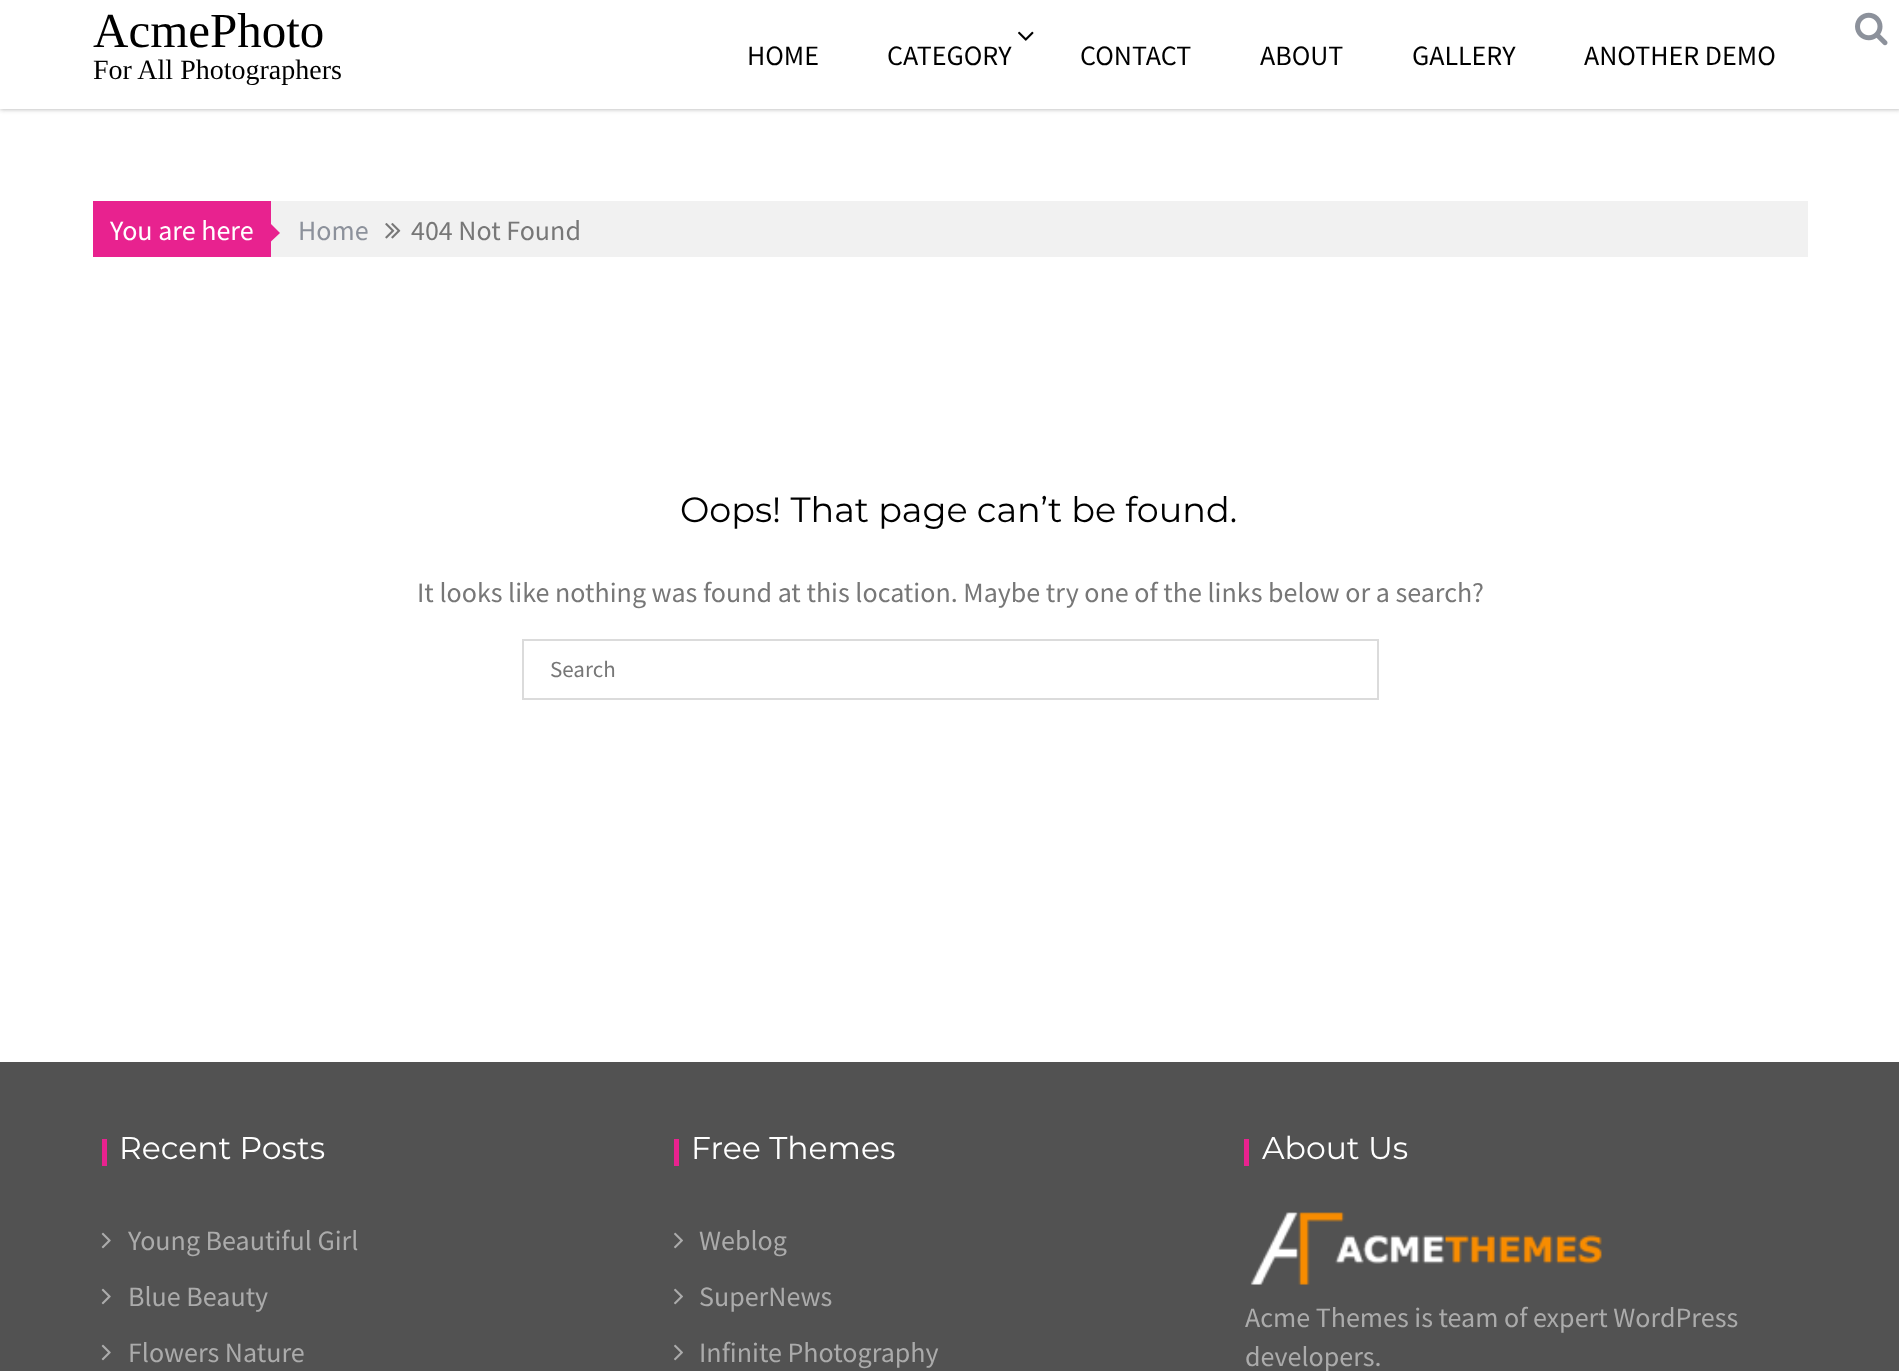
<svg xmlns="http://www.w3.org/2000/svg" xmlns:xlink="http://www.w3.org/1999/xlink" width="1899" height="1371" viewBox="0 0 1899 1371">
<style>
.cls-1{font:49px Liberation Serif;fill:#000000}
.cls-2{font:28px Liberation Serif;fill:#000000}
.cls-3{font:28px Source Sans Pro;fill:#000000}
.cls-4{font:28px Source Sans Pro;fill:#ffffff}
.cls-5{font:28px Source Sans Pro;fill:#8c919b}
.cls-6{font:28px Source Sans Pro;fill:#777777}
.cls-7{font:35px Montserrat;fill:#000000}
.cls-8{font:23px Source Sans Pro;fill:#777777}
.cls-9{font:31.5px Montserrat;fill:#ffffff}
.cls-10{font:28px Source Sans Pro;fill:#ababab}
</style>
<rect width="100%" height="100%" fill="#ffffff"/>
<rect fill="#aaaaaa" filter="blur(2.5px)" x="0" y="0" width="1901" height="109"/>
<rect fill="#ffffff" x="0" y="0" width="1899" height="109"/>
<image xlink:href="image0.png" x="1018" y="31" width="16" height="10"/>
<rect fill="#f1f1f1" x="271" y="201" width="1537" height="56"/>
<rect fill="#e8228f" x="93" y="201" width="178" height="56"/>
<path fill="#e8228f" d="M271 241.5V224L280 233Z"/>
<image xlink:href="image1.png" x="385" y="223" width="16" height="16"/>
<image xlink:href="image2.png" x="1855" y="12" width="33" height="34"/>
<rect fill="none" stroke="#dbdbdb" stroke-width="2" x="523" y="640" width="855" height="59"/>
<rect fill="#525252" x="0" y="1062" width="1899" height="309"/>
<rect fill="#e8228f" x="102" y="1139" width="5" height="27"/>
<image xlink:href="image3.png" x="101" y="1232" width="10" height="17"/>
<image xlink:href="image3.png" x="101" y="1288" width="10" height="17"/>
<image xlink:href="image3.png" x="101" y="1344" width="10" height="17"/>
<rect fill="#e8228f" x="674" y="1139" width="5" height="27"/>
<image xlink:href="image4.png" x="674" y="1232" width="9" height="17"/>
<image xlink:href="image4.png" x="674" y="1288" width="9" height="17"/>
<image xlink:href="image4.png" x="674" y="1344" width="9" height="17"/>
<rect fill="#e8228f" x="1244" y="1139" width="5" height="27"/>
<image xlink:href="image5.png" x="1250" y="1212" width="352" height="73"/>
<text class="cls-1" x="93" y="47">AcmePhoto</text>
<text class="cls-2" x="93" y="79">For All Photographers</text>
<text class="cls-3" x="747" y="65">HOME</text>
<text class="cls-3" x="887" y="65">CATEGORY</text>
<text class="cls-3" x="1080" y="65">CONTACT</text>
<text class="cls-3" x="1260" y="65">ABOUT</text>
<text class="cls-3" x="1412" y="65">GALLERY</text>
<text class="cls-3" x="1584" y="65">ANOTHER DEMO</text>
<text class="cls-4" x="110" y="240">You are here</text>
<text class="cls-5" x="298" y="240">Home</text>
<text class="cls-6" x="411" y="240">404 Not Found</text>
<text class="cls-7" x="680" y="522">Oops! That page can’t be found.</text>
<text class="cls-6" x="417" y="602">It looks like nothing was found at this location. Maybe try one of the links below or a search?</text>
<text class="cls-8" x="550" y="677">Search</text>
<text class="cls-9" x="119" y="1159">Recent Posts</text>
<text class="cls-10" x="128" y="1250">Young Beautiful Girl</text>
<text class="cls-10" x="128" y="1306">Blue Beauty</text>
<text class="cls-10" x="128" y="1362">Flowers Nature</text>
<text class="cls-9" x="691" y="1159">Free Themes</text>
<text class="cls-10" x="699" y="1250">Weblog</text>
<text class="cls-10" x="699" y="1306">SuperNews</text>
<text class="cls-10" x="699" y="1362">Infinite Photography</text>
<text class="cls-9" x="1262" y="1159">About Us</text>
<text class="cls-10"><tspan x="1245" y="1327">Acme Themes is team of expert WordPress</tspan><tspan x="1245" y="1366">developers.</tspan></text>
</svg>
